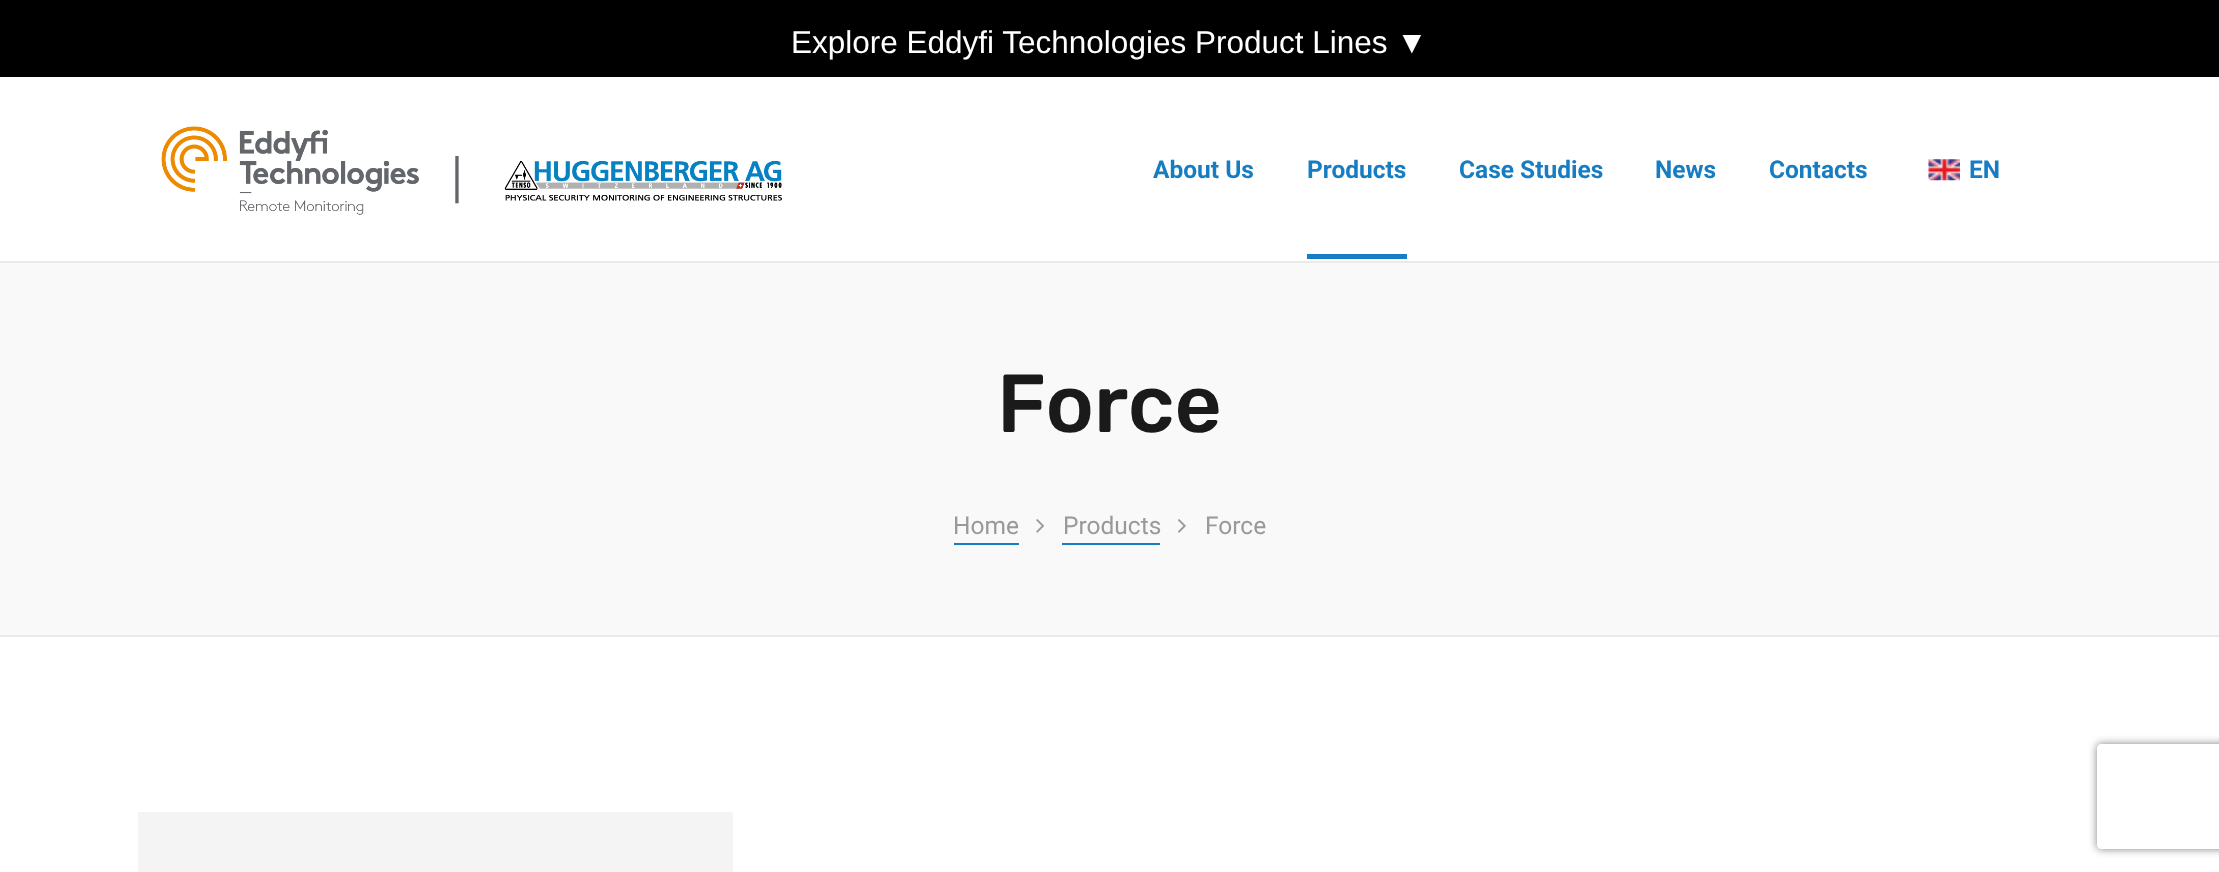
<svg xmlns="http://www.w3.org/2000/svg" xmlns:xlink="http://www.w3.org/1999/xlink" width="2219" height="872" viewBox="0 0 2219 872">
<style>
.cls-1{font:31.5px Liberation Sans;fill:#ffffff}
.cls-2{font:bold 24.5px Roboto;fill:#177dc3}
.cls-3{font:500 82px Rubik;fill:#1b1a1a}
.cls-4{font:24.5px Roboto;fill:#999999}
</style>
<defs>
<clipPath id="clip1"><path d="M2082 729H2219V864H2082ZM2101 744H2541C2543 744 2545 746 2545 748V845C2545 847 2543 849 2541 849H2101C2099 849 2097 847 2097 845V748C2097 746 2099 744 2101 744Z" clip-rule="evenodd"/></clipPath>
</defs>
<rect width="100%" height="100%" fill="#ffffff"/>
<rect fill="#000000" x="0" y="0" width="2219" height="77"/>
<image xlink:href="image0.png" x="161" y="126" width="621" height="89"/>
<rect fill="#187ec3" x="1307" y="254" width="100" height="5"/>
<image xlink:href="image1.png" x="1928" y="159" width="32" height="22"/>
<rect fill="#f9f9f9" x="0" y="263" width="2219" height="372"/>
<rect fill="#eaeaea" x="0" y="261" width="2219" height="2"/>
<rect fill="#eaeaea" x="0" y="635" width="2219" height="2"/>
<rect fill="#177dc3" x="954" y="543" width="65" height="2"/>
<image xlink:href="image2.png" x="1036" y="519" width="8" height="14"/>
<rect fill="#177dc3" x="1062" y="543" width="98" height="2"/>
<image xlink:href="image3.png" x="1178" y="519" width="8" height="14"/>
<rect fill="#f4f4f4" x="138" y="812" width="595" height="60"/>
<g clip-path="url(#clip1)">
<rect fill="#808080" filter="blur(4.5px)" x="2097" y="744" width="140" height="105" rx="4"/>
</g>
<text class="cls-1" x="791" y="53">Explore Eddyfi Technologies Product Lines ▼</text>
<text class="cls-2" x="1153" y="178">About Us</text>
<text class="cls-2" x="1307" y="178">Products</text>
<text class="cls-2" x="1459" y="178">Case Studies</text>
<text class="cls-2" x="1655" y="178">News</text>
<text class="cls-2" x="1769" y="178">Contacts</text>
<text class="cls-2" x="1969" y="178">EN</text>
<text class="cls-3" x="997" y="432">Force</text>
<text class="cls-4" x="953" y="534">Home</text>
<text class="cls-4" x="1063" y="534">Products</text>
<text class="cls-4" x="1205" y="534">Force</text>
</svg>
